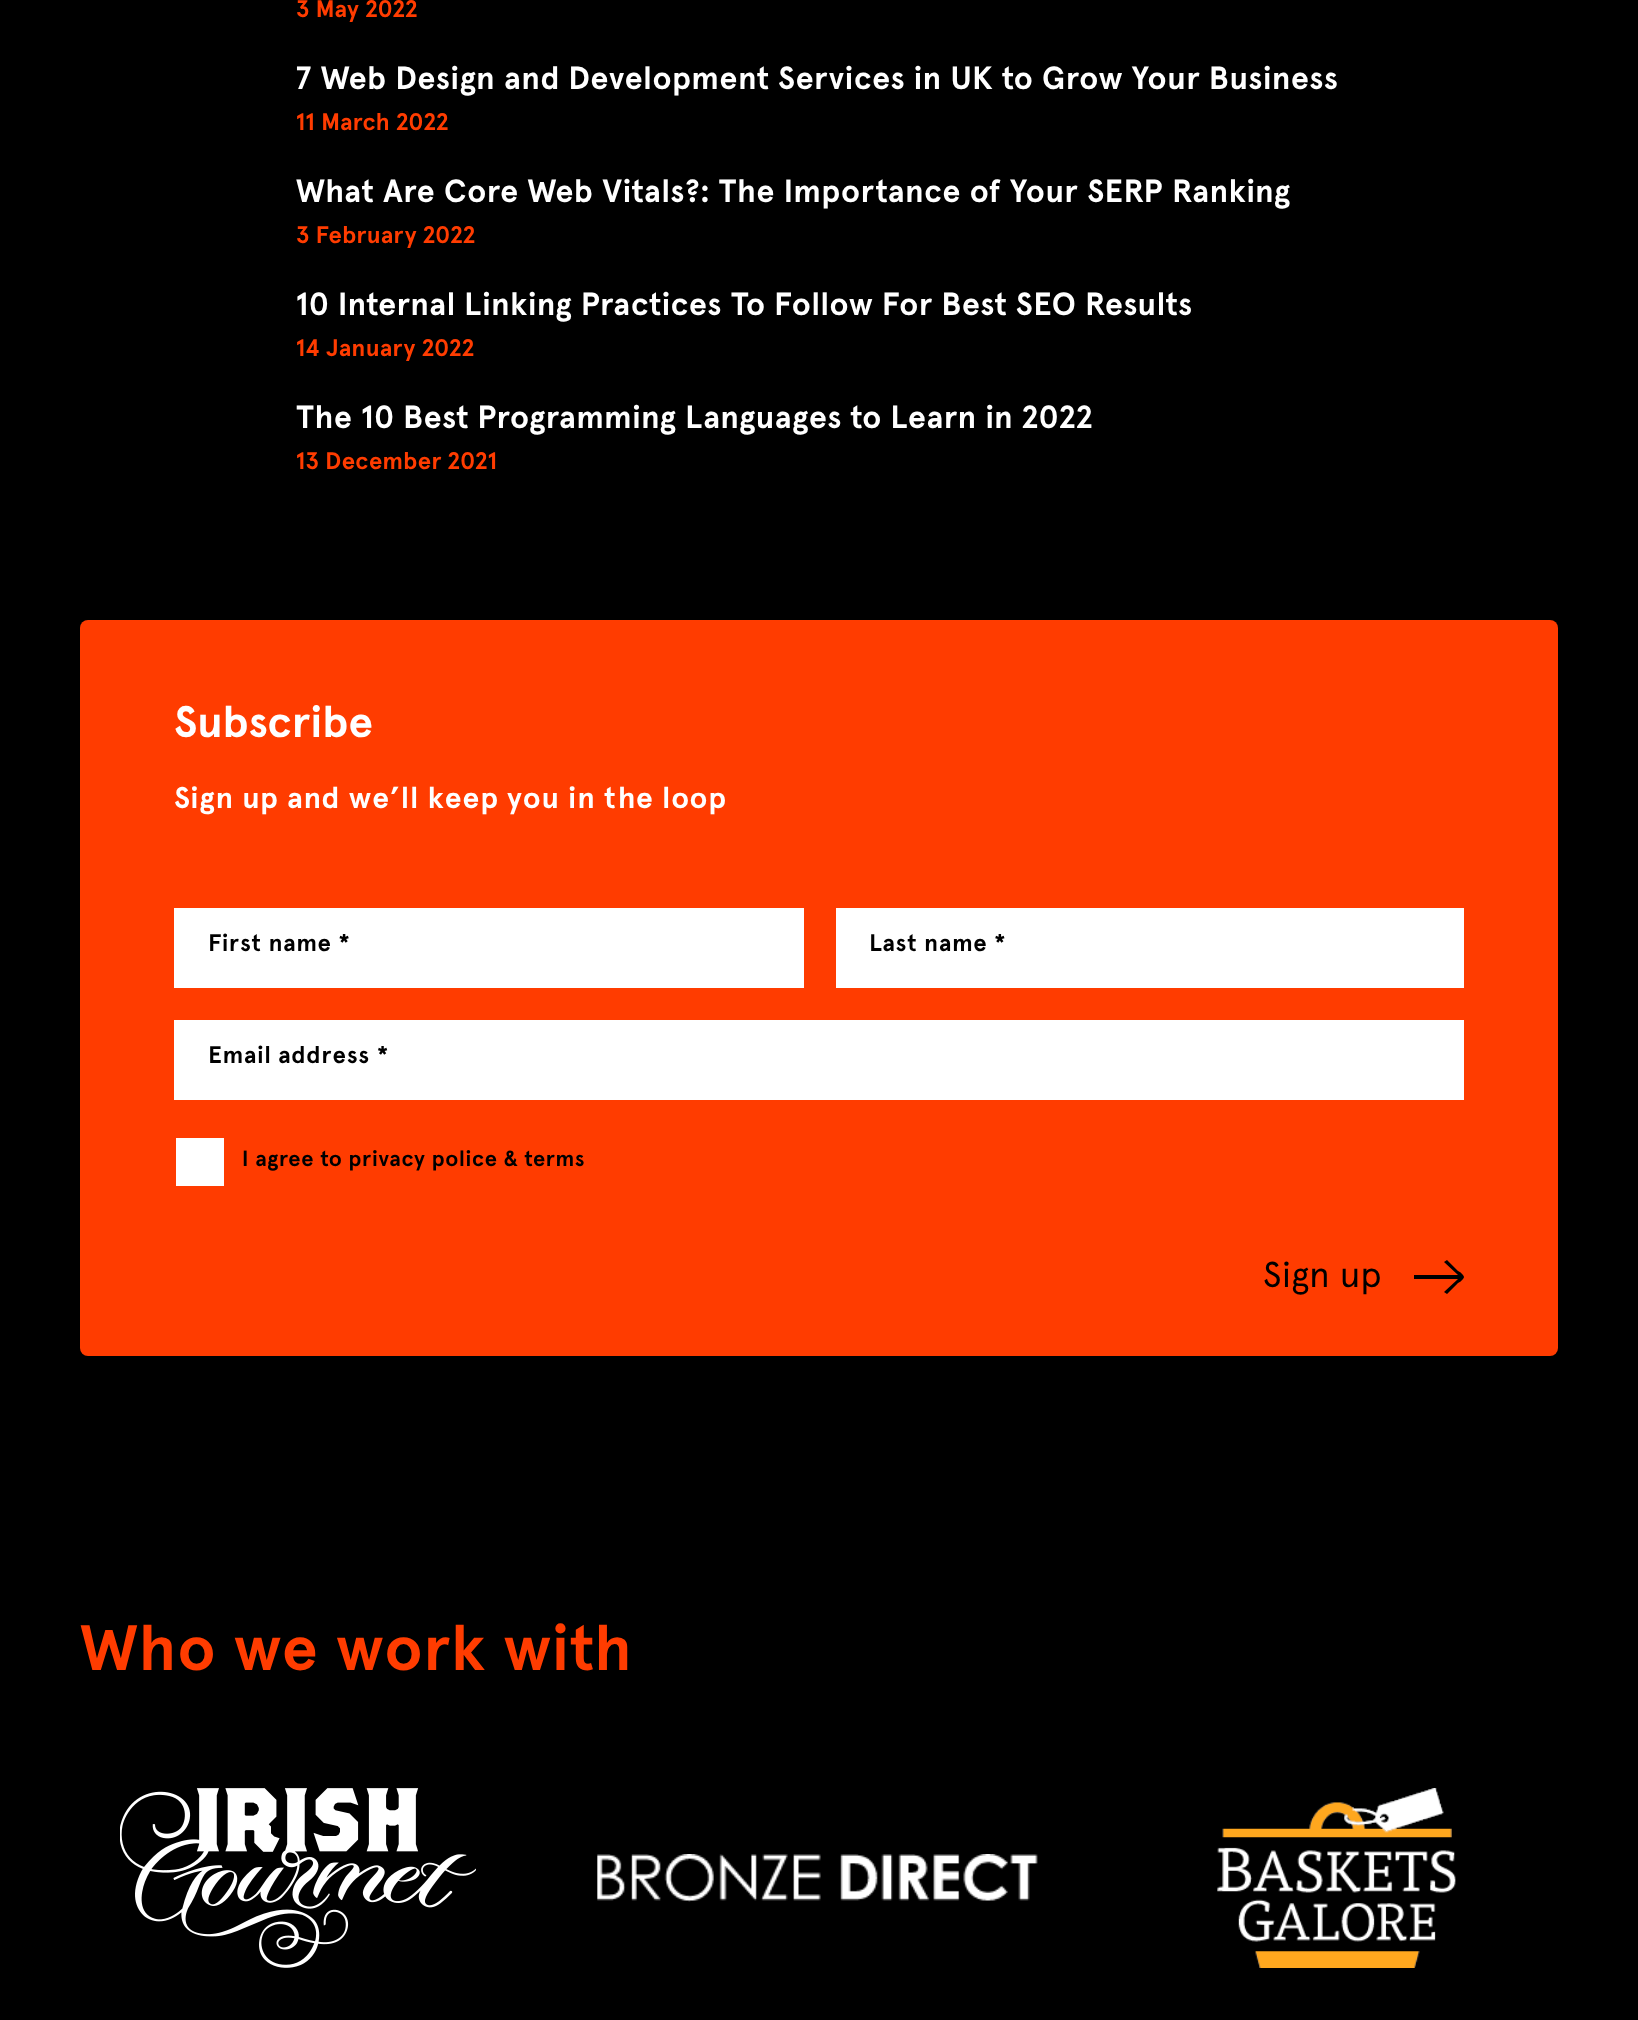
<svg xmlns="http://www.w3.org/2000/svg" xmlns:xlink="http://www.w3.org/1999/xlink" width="1638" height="2020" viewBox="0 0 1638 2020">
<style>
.cls-1{font:bold 24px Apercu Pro;letter-spacing:0.25px;fill:#ff3c00}
.cls-2{font:bold 32px Apercu Pro;letter-spacing:0.65px;fill:#ffffff}
.cls-3{font:bold 44px Apercu Pro;letter-spacing:0.25px;fill:#ffffff}
.cls-4{font:bold 30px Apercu;letter-spacing:0.9px;fill:#ffffff}
.cls-5{font:bold 24px Apercu;letter-spacing:0.75px;fill:#000000}
.cls-6{font:bold 22px Apercu Pro;letter-spacing:0.65px;fill:#000000}
.cls-7{font:36px Apercu Pro;letter-spacing:0.75px;fill:#000000}
.cls-8{font:bold 64px Apercu Pro;letter-spacing:1.25px;fill:#ff3c00}
</style>
<rect width="100%" height="100%" fill="#000000"/>
<rect fill="#ff3c00" x="80" y="620" width="1478" height="736" rx="8"/>
<rect fill="#ffffff" x="174" y="908" width="630" height="80"/>
<rect fill="#ffffff" x="836" y="908" width="628" height="80"/>
<rect fill="#ffffff" x="174" y="1020" width="1290" height="80"/>
<rect fill="#ffffff" x="176" y="1138" width="48" height="48"/>
<path fill="#000000" d="M1464 1277C1464 1275 1459 1271 1458 1271L1447 1260L1444 1262L1458 1275H1414V1279H1458L1444 1292L1447 1294L1458 1283C1459 1283 1464 1279 1464 1277Z"/>
<image xlink:href="image0.png" x="120" y="1788" width="356" height="180"/>
<image xlink:href="image1.png" x="597" y="1854" width="441" height="48"/>
<image xlink:href="image2.png" x="1217" y="1788" width="239" height="180"/>
<text class="cls-1" x="296" y="17">3 May 2022</text>
<text class="cls-2" x="296" y="89">7 Web Design and Development Services in UK to Grow Your Business</text>
<text class="cls-1" x="296" y="130">11 March 2022</text>
<text class="cls-2" x="296" y="202">What Are Core Web Vitals?: The Importance of Your SERP Ranking</text>
<text class="cls-1" x="296" y="243">3 February 2022</text>
<text class="cls-2" x="296" y="315">10 Internal Linking Practices To Follow For Best SEO Results</text>
<text class="cls-1" x="296" y="356">14 January 2022</text>
<text class="cls-2" x="296" y="428">The 10 Best Programming Languages to Learn in 2022</text>
<text class="cls-1" x="296" y="469">13 December 2021</text>
<text class="cls-3" x="174" y="737">Subscribe</text>
<text class="cls-4" x="174" y="808">Sign up and we’ll keep you in the loop</text>
<text class="cls-5" x="208" y="951">First name *</text>
<text class="cls-5" x="869" y="951">Last name *</text>
<text class="cls-5" x="208" y="1063">Email address *</text>
<text class="cls-6" x="242" y="1166">I agree to privacy police &amp; terms</text>
<text class="cls-7" x="1263" y="1287">Sign up</text>
<text class="cls-8" x="80" y="1670">Who we work with</text>
</svg>
